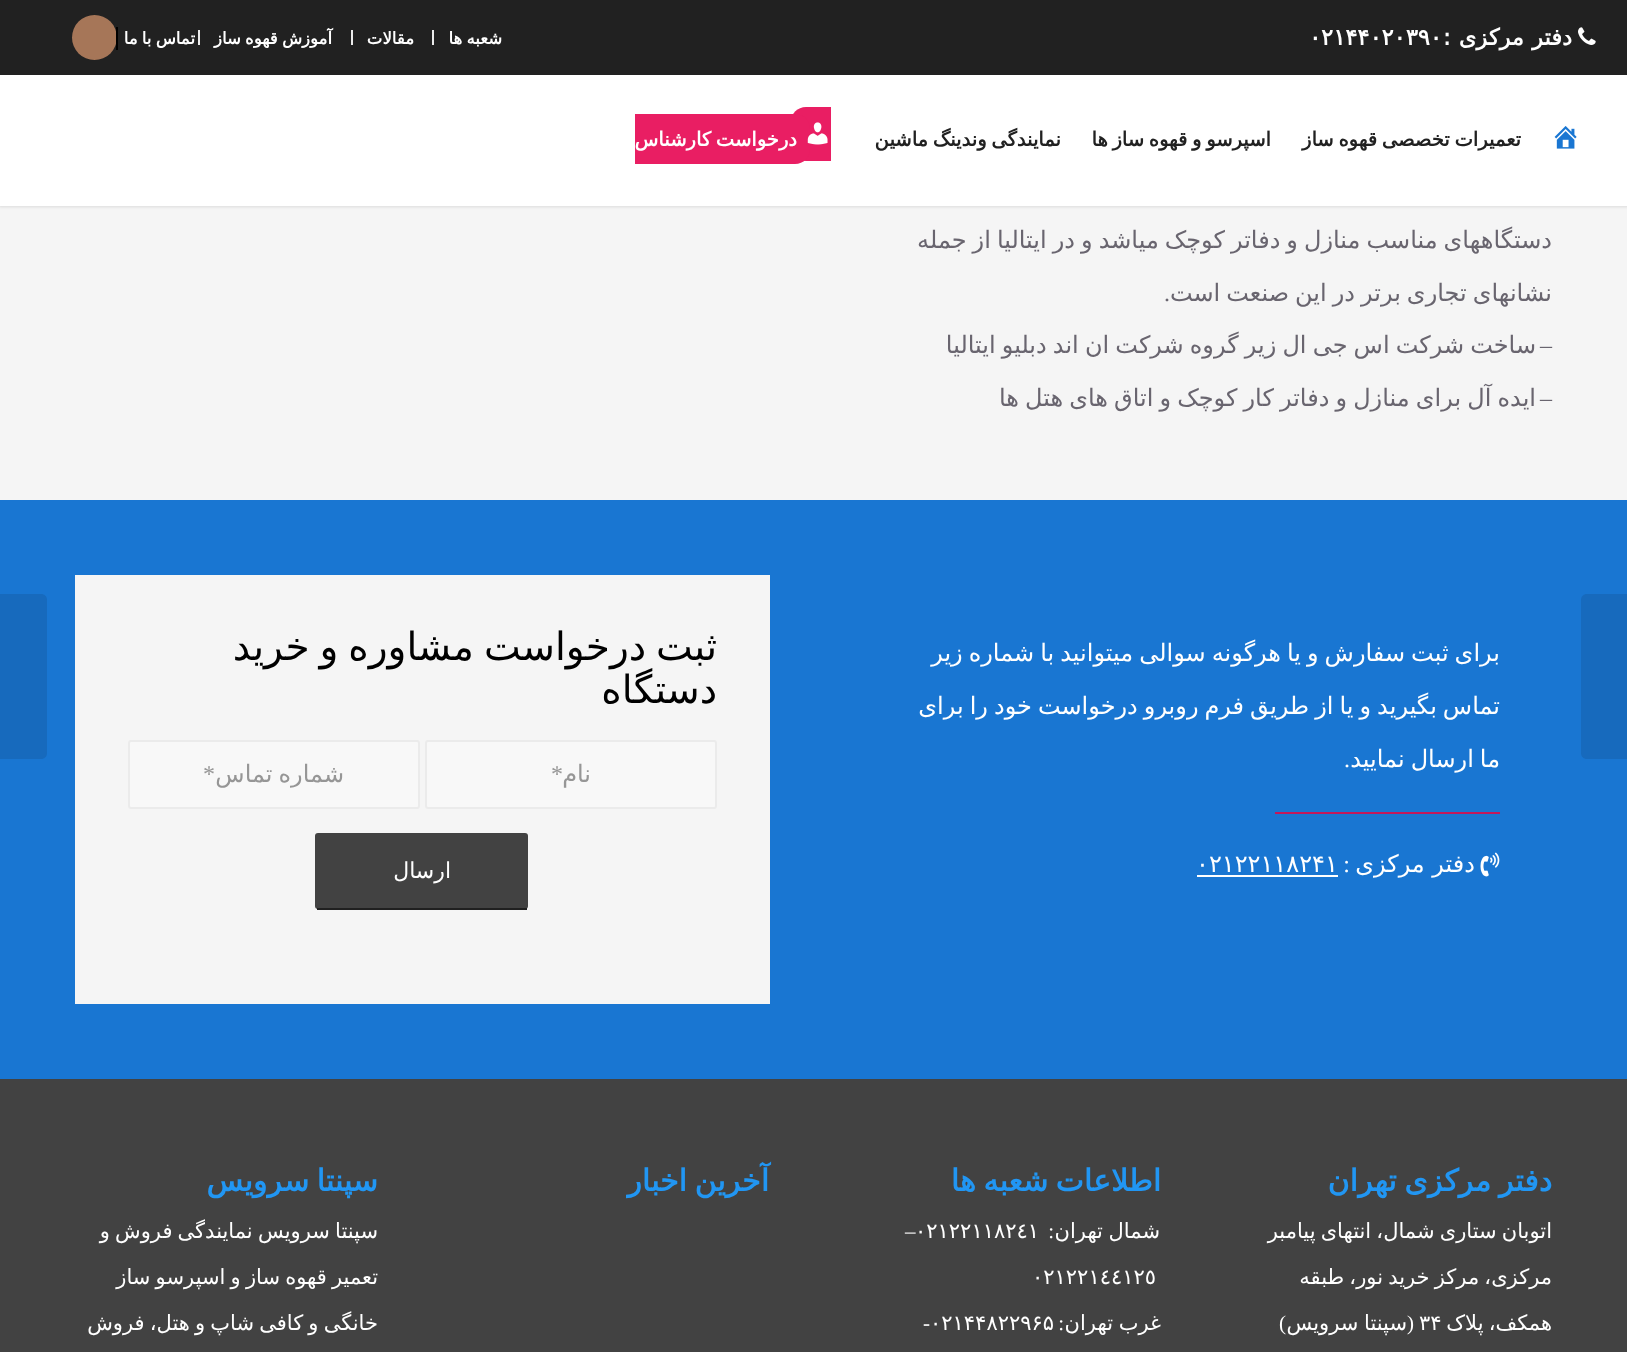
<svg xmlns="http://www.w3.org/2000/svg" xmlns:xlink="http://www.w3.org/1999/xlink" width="1627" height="1352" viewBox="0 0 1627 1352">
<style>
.cls-1{font:bold 22.5px DejaVu Sans;direction:rtl;fill:#ffffff}
.cls-2{font:bold 22.5px DejaVu Sans;fill:#ffffff}
.cls-3{font:bold 16.5px DejaVu Sans;direction:rtl;fill:#ffffff}
.cls-4{font:bold 19.5px DejaVu Sans;direction:rtl;fill:#212121}
.cls-5{font:bold 19.5px DejaVu Sans;direction:rtl;fill:#ffffff}
.cls-6{font:24px DejaVu Sans;direction:rtl;fill:#69656f}
.cls-7{font:24px Liberation Serif;direction:rtl;fill:#69656f}
.cls-8{font:24px DejaVu Sans;direction:rtl;fill:#ffffff}
.cls-9{font:24px Liberation Serif;direction:rtl;fill:#ffffff}
.cls-10{font:24px DejaVu Sans;fill:#ffffff}
.cls-11{font:39px DejaVu Sans;direction:rtl;fill:#000000}
.cls-12{font:24px DejaVu Sans;direction:rtl;fill:#969696}
.cls-13{font:24px Liberation Serif;direction:rtl;fill:#969696}
.cls-14{font:22px DejaVu Sans;direction:rtl;fill:#ffffff}
.cls-15{font:bold 30px DejaVu Sans;direction:rtl;fill:#2196f3}
.cls-16{font:21px DejaVu Sans;direction:rtl;fill:#ffffff}
.cls-17{font:21px DejaVu Sans;fill:#ffffff}
.cls-18{font:21px Liberation Serif;direction:rtl;fill:#ffffff}
.cls-19{font:21px Liberation Serif;fill:#ffffff}
</style>
<rect width="100%" height="100%" fill="#f5f5f5"/>
<rect fill="#000000" fill-opacity="0.1" filter="blur(1.5px)" x="-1" y="-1" width="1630" height="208"/>
<rect fill="#212121" x="0" y="0" width="1627" height="75"/>
<image xlink:href="image0.png" x="1578" y="27" width="18" height="18"/>
<rect fill="#ebebeb" x="432" y="30" width="2" height="15"/>
<rect fill="#ebebeb" x="351" y="30" width="2" height="15"/>
<rect fill="#ebebeb" x="198" y="30" width="2" height="15"/>
<circle fill="#a67658" cx="94.5" cy="37.5" r="22.5"/>
<rect fill="#000000" x="116" y="27" width="2" height="23"/>
<rect fill="#ffffff" x="0" y="75" width="1627" height="131"/>
<image xlink:href="image1.png" x="1554" y="126" width="23" height="23"/>
<path fill="#e91e63" d="M806 107H831V161H806C797.5 161 791 154.5 791 146V122C791 113.5 797.5 107 806 107Z"/>
<path fill="#e91e63" d="M635 114H795C803.5 114 810 120.5 810 129V149C810 157.5 803.5 164 795 164H635Z"/>
<image xlink:href="image2.png" x="807" y="122" width="21" height="23"/>
<rect fill="#1976d2" x="0" y="500" width="1627" height="579"/>
<path fill="#176abd" d="M1587 594H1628V759H1587C1583.5 759 1581 756.5 1581 753V600C1581 596.5 1583.5 594 1587 594Z"/>
<rect fill="#c2185b" x="1275" y="812" width="225" height="2"/>
<image xlink:href="image3.png" x="1480" y="852" width="20" height="25"/>
<rect fill="#ffffff" x="1197" y="875" width="141" height="2"/>
<rect fill="#f5f5f5" x="75" y="575" width="695" height="429"/>
<rect fill="#f8f8f8" stroke="#ebebeb" stroke-width="2" x="426" y="741" width="290" height="67" rx="2"/>
<rect fill="#f8f8f8" stroke="#ebebeb" stroke-width="2" x="129" y="741" width="290" height="67" rx="2"/>
<rect fill="#424242" x="315" y="833" width="213" height="76" rx="3"/>
<rect fill="#202020" x="317" y="908" width="210" height="2"/>
<rect fill="#424242" x="0" y="1079" width="1627" height="273"/>
<path fill="#176abd" d="M0 594H41C44.5 594 47 596.5 47 600V753C47 756.5 44.5 759 41 759H0Z"/>
<text class="cls-1" x="1572" y="45" word-spacing="1">دفتر مرکزی :</text>
<text class="cls-2" x="1309" y="45">۰۲۱۴۴۰۲۰۳۹۰</text>
<text class="cls-3" x="502" y="44" word-spacing="-1">شعبه ها</text>
<text class="cls-3" x="414" y="44">مقالات</text>
<text class="cls-3" x="332" y="44" word-spacing="-1">آموزش قهوه ساز</text>
<text class="cls-3" x="195" y="44" word-spacing="-1">تماس با ما</text>
<text class="cls-4" x="1521" y="146" word-spacing="-1.5">تعمیرات تخصصی قهوه ساز</text>
<text class="cls-4" x="1271" y="146" word-spacing="-1.5">اسپرسو و قهوه ساز ها</text>
<text class="cls-4" x="1061" y="146" word-spacing="-1.5">نمایندگی وندینگ ماشین</text>
<text class="cls-5" x="797" y="146" word-spacing="-1.5">درخواست کارشناس</text>
<text class="cls-6" x="1552" y="248" word-spacing="-1.6">دستگاههای مناسب منازل و دفاتر کوچک میاشد و در ایتالیا از جمله</text>
<text class="cls-6" x="1552" y="301" word-spacing="-1.6">نشانهای تجاری برتر در این صنعت است</text>
<text class="cls-7" x="1170" y="301">.</text>
<text class="cls-7" x="1552" y="353">–</text>
<text class="cls-6" x="1536" y="353" word-spacing="-1.5">ساخت شرکت اس جی ال زیر گروه شرکت ان اند دبلیو ایتالیا</text>
<text class="cls-7" x="1552" y="406">–</text>
<text class="cls-6" x="1536" y="406" word-spacing="-1.5">ایده آل برای منازل و دفاتر کار کوچک و اتاق های هتل ها</text>
<text class="cls-8" x="1500" y="661" word-spacing="-1.6">برای ثبت سفارش و یا هرگونه سوالی میتوانید با شماره زیر</text>
<text class="cls-8" x="1500" y="714" word-spacing="-1.6">تماس بگیرید و یا از طریق فرم روبرو درخواست خود را برای</text>
<text class="cls-8" x="1500" y="767" word-spacing="-1.6">ما ارسال نمایید</text>
<text class="cls-9" x="1350" y="767">.</text>
<text class="cls-8" x="1475" y="872">دفتر مرکزی</text>
<text class="cls-9" x="1350" y="872">:</text>
<text class="cls-10" x="1196" y="872">۰۲۱۲۲۱۱۸۲۴۱</text>
<text class="cls-11"><tspan x="717" y="660" word-spacing="-2.5">ثبت درخواست مشاوره و خرید</tspan><tspan x="717" y="703">دستگاه</tspan></text>
<text class="cls-12" x="591" y="782">نام</text>
<text class="cls-13" x="563" y="782">*</text>
<text class="cls-12" x="344" y="782" word-spacing="-1.6">شماره تماس</text>
<text class="cls-13" x="215" y="782">*</text>
<text class="cls-14" x="451" y="878">ارسال</text>
<text class="cls-15" x="1552" y="1191" word-spacing="-2">دفتر مرکزی تهران</text>
<text class="cls-16" x="1552" y="1238" word-spacing="-1.5">اتوبان ستاری شمال، انتهای پیامبر</text>
<text class="cls-16" x="1552" y="1284" word-spacing="-1.5">مرکزی، مرکز خرید نور، طبقه</text>
<text class="cls-16" x="1552" y="1330" word-spacing="-1.5">همکف، پلاک</text>
<text class="cls-17" x="1419" y="1330">۳۴</text>
<text class="cls-18" x="1414" y="1330">(</text>
<text class="cls-16" x="1407" y="1330" word-spacing="-1">سپنتا سرویس</text>
<text class="cls-18" x="1286" y="1330">)</text>
<text class="cls-15" x="1161" y="1191" word-spacing="-2">اطلاعات شعبه ها</text>
<text class="cls-16" x="1160" y="1238" word-spacing="-1">شمال تهران</text>
<text class="cls-18" x="1054" y="1238">:</text>
<text class="cls-17" x="915" y="1238">٠٢١٢٢١١٨٢٤١</text>
<text class="cls-19" x="905" y="1238">–</text>
<text class="cls-17" x="1032" y="1284">٠٢١٢٢١٤٤١٢٥</text>
<text class="cls-16" x="1161" y="1330" word-spacing="-1">غرب تهران</text>
<text class="cls-18" x="1064" y="1330">:</text>
<text class="cls-17" x="930" y="1330">۰۲۱۴۴۸۲۲۹۶۵</text>
<text class="cls-19" x="923" y="1330">-</text>
<text class="cls-15" x="769" y="1191" word-spacing="-2">آخرین اخبار</text>
<text class="cls-15" x="378" y="1191" word-spacing="-2">سپنتا سرویس</text>
<text class="cls-16" x="378" y="1238" word-spacing="-1.5">سپنتا سرویس نمایندگی فروش و</text>
<text class="cls-16" x="378" y="1284" word-spacing="-1.5">تعمیر قهوه ساز و اسپرسو ساز</text>
<text class="cls-16" x="378" y="1330" word-spacing="-1.5">خانگی و کافی شاپ و هتل، فروش</text>
</svg>
